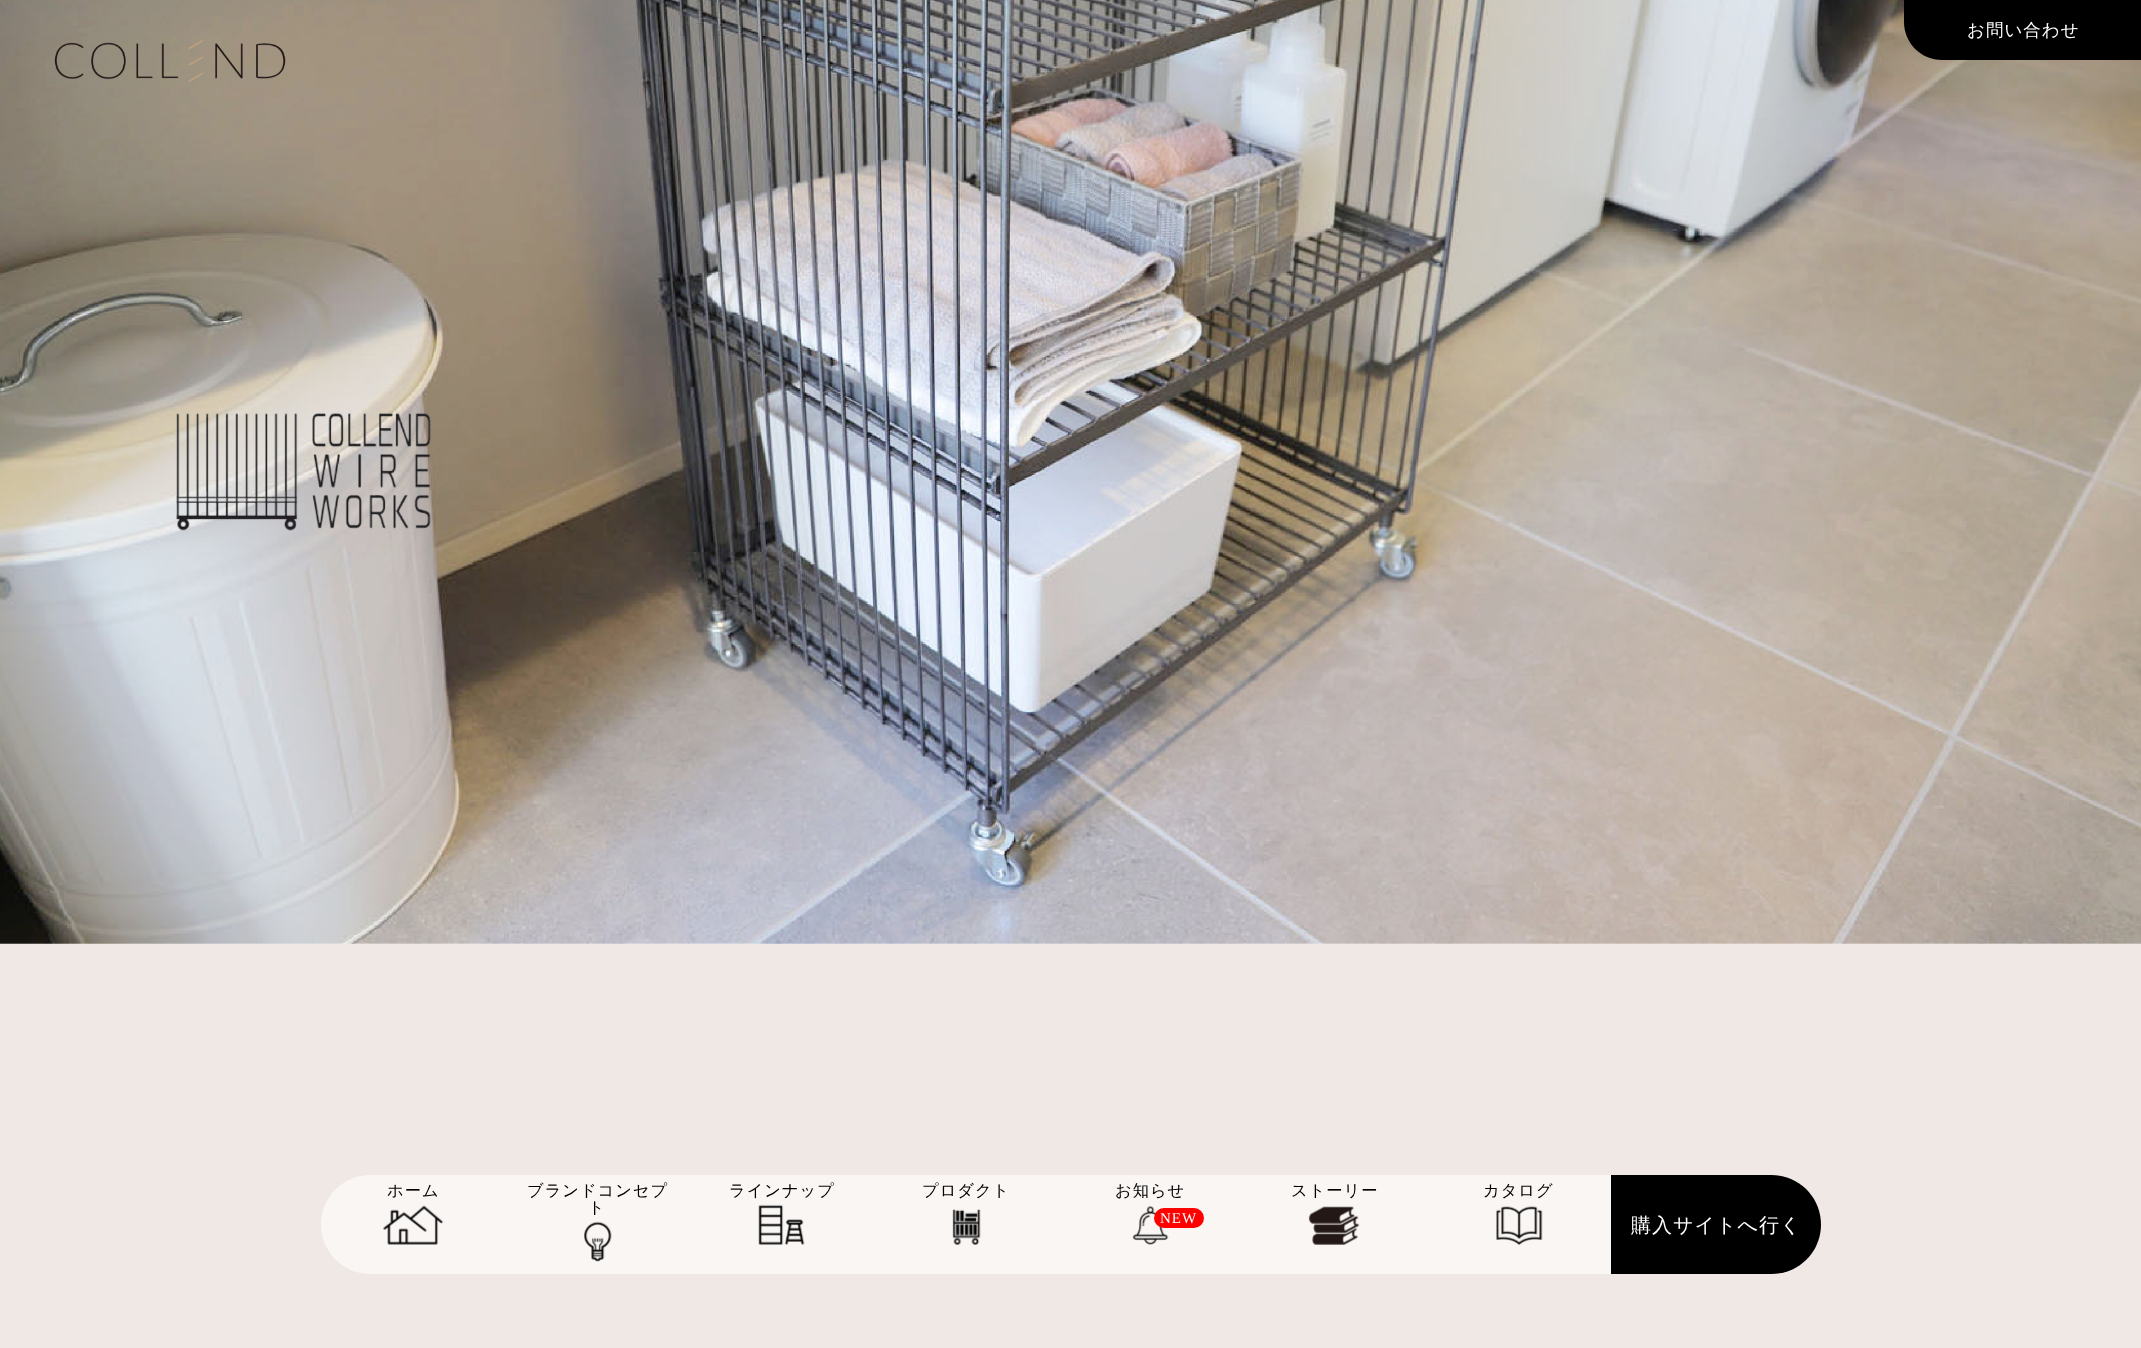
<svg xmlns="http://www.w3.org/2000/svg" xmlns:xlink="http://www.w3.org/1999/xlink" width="2141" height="1348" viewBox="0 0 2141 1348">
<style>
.cls-1{font:500 17.5px WenQuanYi Zen Hei;letter-spacing:1px;fill:#ffffff}
.cls-2{font:500 16.25px WenQuanYi Zen Hei;letter-spacing:1px;fill:#000000}
.cls-3{font:15px Liberation Serif;letter-spacing:1px;fill:#ffffff}
.cls-4{font:500 20px WenQuanYi Zen Hei;letter-spacing:1px;fill:#ffffff}
</style>
<rect width="100%" height="100%" fill="#ffffff"/>
<image xlink:href="image0.png" x="0" y="0" width="2141" height="944"/>
<path fill="#000000" d="M1904 0H2141V60H1942C1921 60 1904 43 1904 22Z"/>
<image xlink:href="image1.png" x="54" y="40" width="232" height="42"/>
<image xlink:href="image2.png" x="176" y="412" width="255" height="119"/>
<rect fill="#f0e8e5" x="0" y="944" width="2141" height="404"/>
<rect fill="#f9f6f4" x="321" y="1175" width="1500" height="99" rx="49.5"/>
<image xlink:href="image3.png" x="383" y="1205" width="61" height="40"/>
<image xlink:href="image4.png" x="584" y="1221" width="28" height="41"/>
<image xlink:href="image5.png" x="758" y="1204" width="47" height="41"/>
<image xlink:href="image6.png" x="952" y="1209" width="29" height="36"/>
<image xlink:href="image7.png" x="1132" y="1205" width="37" height="40"/>
<rect fill="#ff0000" x="1154" y="1208" width="50" height="20" rx="10"/>
<image xlink:href="image8.png" x="1308" y="1206" width="52" height="39"/>
<image xlink:href="image9.png" x="1496" y="1206" width="47" height="39"/>
<path fill="#000000" d="M1611 1175H1771.5C1799 1175 1821 1197 1821 1224.5C1821 1252 1799 1274 1771.5 1274H1611Z"/>
<text class="cls-1" x="1967" y="36">お問い合わせ</text>
<text class="cls-2" x="387" y="1196">ホーム</text>
<text class="cls-2" x="527" y="1196">ブランドコンセプ</text>
<text class="cls-2" x="588" y="1213">ト</text>
<text class="cls-2" x="729" y="1196">ラインナップ</text>
<text class="cls-2" x="922" y="1196">プロダクト</text>
<text class="cls-2" x="1115" y="1196">お知らせ</text>
<text class="cls-3" x="1160" y="1223">NEW</text>
<text class="cls-2" x="1291" y="1196">ストーリー</text>
<text class="cls-2" x="1483" y="1196">カタログ</text>
<text class="cls-4" x="1631" y="1232">購入サイトへ行く</text>
</svg>
